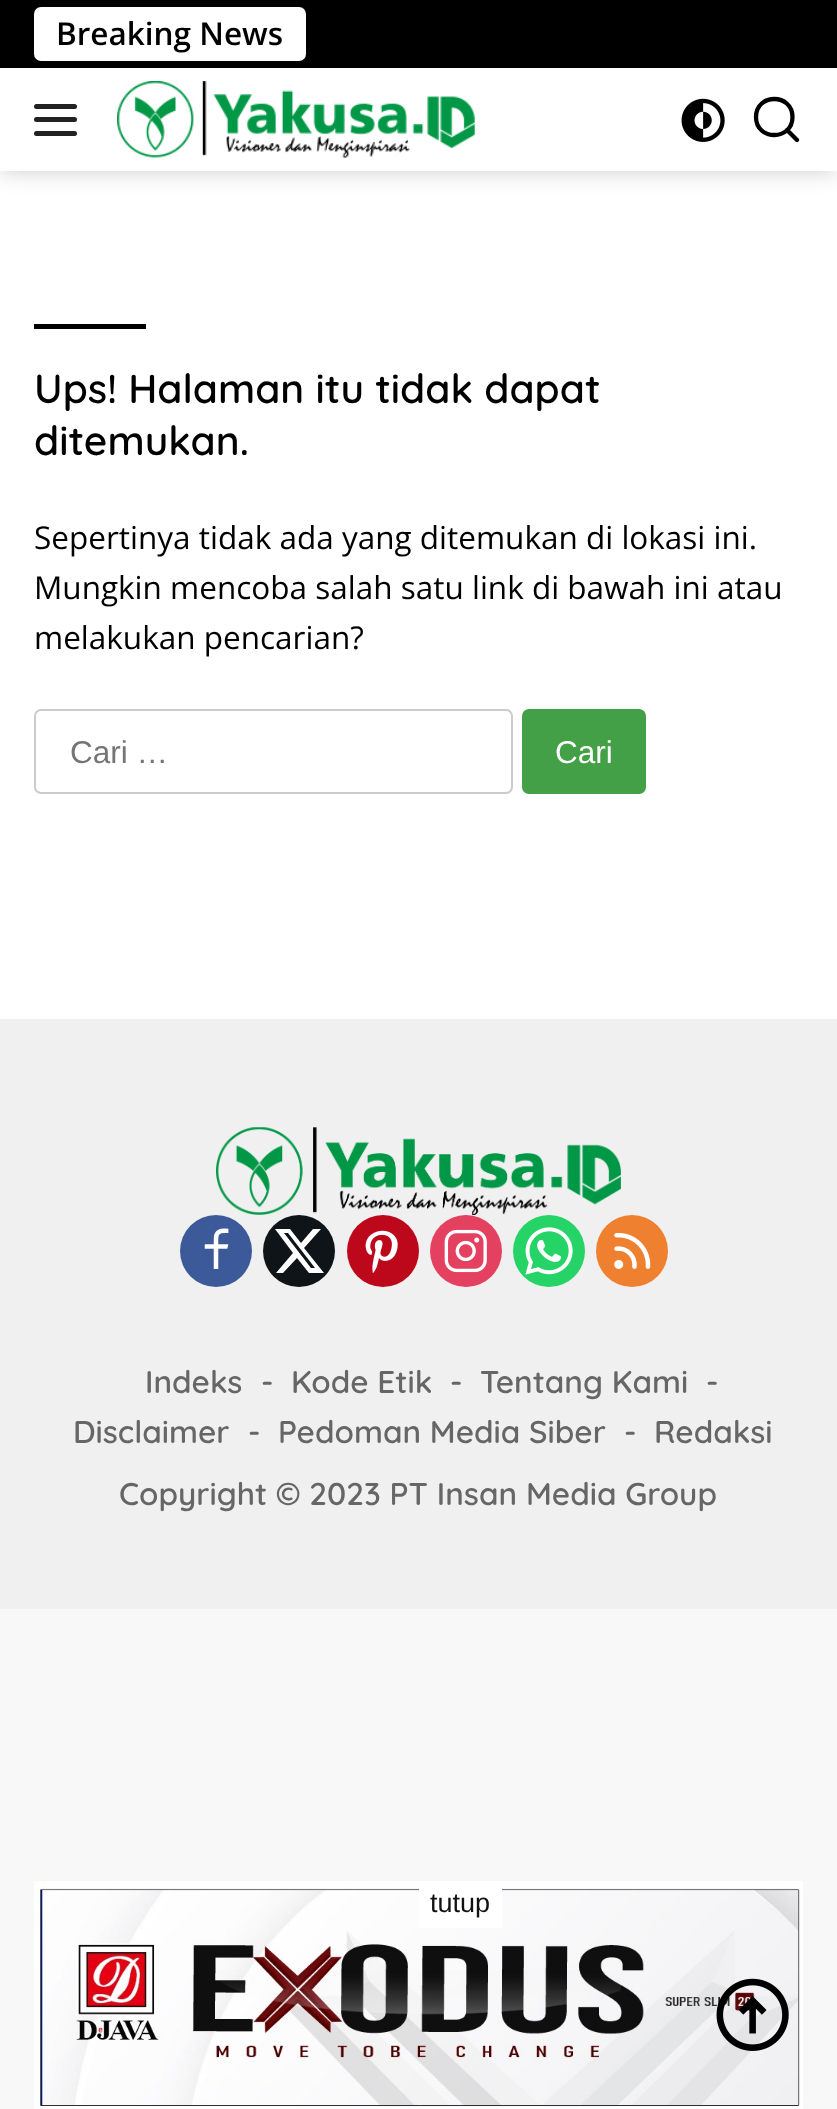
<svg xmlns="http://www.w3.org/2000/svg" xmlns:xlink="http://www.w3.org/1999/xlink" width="837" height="2109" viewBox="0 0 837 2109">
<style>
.cls-1{font:600 31.5px Open Sans;fill:#000000}
.cls-2{font:600 40.5px Quicksand;fill:#000000}
.cls-3{font:31.5px Open Sans;fill:#000000}
.cls-4{font:31.5px Liberation Sans;fill:#757575}
.cls-5{font:31.5px Liberation Sans;fill:#ffffff}
.cls-6{font:600 31.5px Quicksand;fill:#666666}
.cls-7{font:27px Liberation Sans;fill:#111111}
</style>
<rect width="100%" height="100%" fill="#f8f8f8"/>
<rect fill="#ffffff" x="0" y="171" width="837" height="848"/>
<rect fill="#000000" fill-opacity="0.2" filter="blur(11px)" x="0" y="0" width="837" height="171"/>
<rect fill="#ffffff" x="0" y="68" width="837" height="103"/>
<rect fill="#000000" x="0" y="0" width="837" height="68"/>
<rect fill="#ffffff" x="34" y="7" width="272" height="54" rx="7"/>
<rect fill="#222222" x="34" y="104" width="43" height="5" rx="2.5"/>
<rect fill="#222222" x="34" y="117" width="43" height="5" rx="2.5"/>
<rect fill="#222222" x="34" y="131" width="43" height="5" rx="2.5"/>
<image xlink:href="image0.png" x="117" y="81" width="358" height="77"/>
<image xlink:href="image1.png" x="681" y="98" width="44" height="44"/>
<path fill="none" stroke="#000000" stroke-width="4.3" stroke-linecap="round" d="M797 140L787 130M792.5 117C792.5 141 756 141 756 117C756 93 792.5 93 792.5 117Z"/>
<rect fill="#000000" x="34" y="324" width="112" height="5"/>
<rect fill="none" stroke="#cccccc" stroke-width="2" x="35" y="710" width="477" height="83" rx="6"/>
<rect fill="#43a047" x="522" y="709" width="124" height="85" rx="7"/>
<rect fill="#f0f0f0" x="0" y="1019" width="837" height="590"/>
<image xlink:href="image2.png" x="216" y="1127" width="405" height="88"/>
<circle fill="#3c5a99" cx="216" cy="1251" r="36"/>
<image xlink:href="image3.png" x="204" y="1228" width="25" height="41"/>
<circle fill="#0f1419" cx="299" cy="1251" r="36"/>
<path fill="#ffffff" d="M313 1229H321L304 1248L324 1273H309L297 1258L283 1273H276L293 1253L275 1229H290L301 1243ZM311 1268H315L288 1233H284Z"/>
<circle fill="#bd081c" cx="383" cy="1251" r="36"/>
<image xlink:href="image4.png" x="365" y="1230" width="33" height="43"/>
<circle fill="#e4405f" cx="466" cy="1251" r="36"/>
<image xlink:href="image5.png" x="444" y="1229" width="43" height="44"/>
<circle fill="#25d366" cx="549" cy="1251" r="36"/>
<image xlink:href="image6.png" x="525" y="1227" width="48" height="48"/>
<circle fill="#ee802f" cx="632" cy="1251" r="36"/>
<image xlink:href="image7.png" x="614" y="1232" width="37" height="37"/>
<image xlink:href="image8.png" x="34" y="1881" width="769" height="228"/>
<rect fill="#ffffff" x="419" y="1887" width="83" height="41"/>
<image xlink:href="image9.png" x="716" y="1978" width="73" height="73"/>
<text class="cls-1" x="56" y="45">Breaking News</text>
<text class="cls-2"><tspan x="34" y="403">Ups! Halaman itu tidak dapat</tspan><tspan x="34" y="455">ditemukan.</tspan></text>
<text class="cls-3"><tspan x="34" y="549">Sepertinya tidak ada yang ditemukan di lokasi ini.</tspan><tspan x="34" y="599">Mungkin mencoba salah satu link di bawah ini atau</tspan><tspan x="34" y="649">melakukan pencarian?</tspan></text>
<text class="cls-4" x="70" y="763">Cari …</text>
<text class="cls-5" x="555" y="763">Cari</text>
<text class="cls-6" x="145" y="1393">Indeks</text>
<text class="cls-6" x="261" y="1393">-</text>
<text class="cls-6" x="291" y="1393">Kode Etik</text>
<text class="cls-6" x="450" y="1393">-</text>
<text class="cls-6" x="480" y="1393">Tentang Kami</text>
<text class="cls-6" x="706" y="1393">-</text>
<text class="cls-6" x="73" y="1443">Disclaimer</text>
<text class="cls-6" x="248" y="1443">-</text>
<text class="cls-6" x="278" y="1443">Pedoman Media Siber</text>
<text class="cls-6" x="624" y="1443">-</text>
<text class="cls-6" x="654" y="1443">Redaksi</text>
<text class="cls-6" x="119" y="1505">Copyright © 2023 PT Insan Media Group</text>
<text class="cls-7" x="430" y="1912">tutup</text>
</svg>
